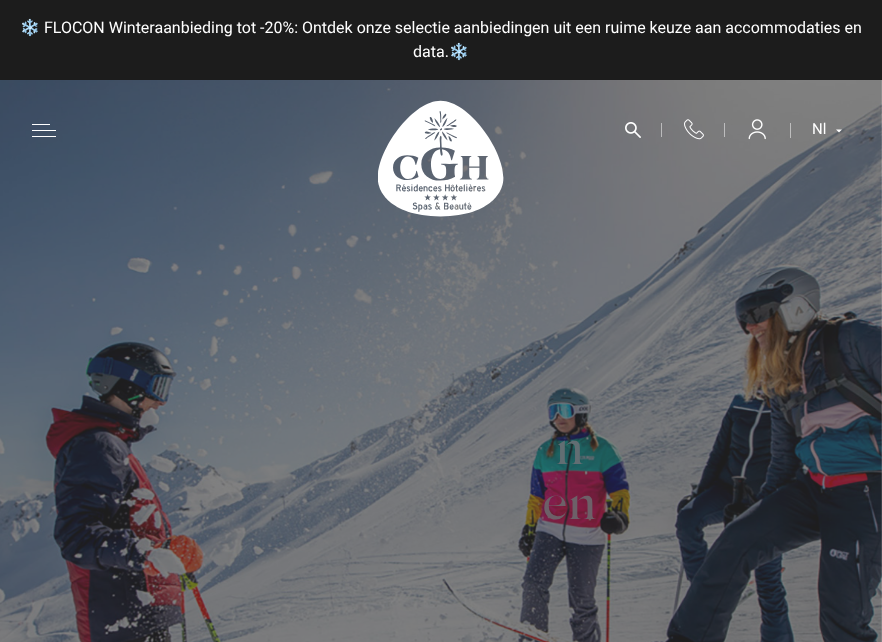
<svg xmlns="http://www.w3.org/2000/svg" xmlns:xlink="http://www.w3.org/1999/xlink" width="882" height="642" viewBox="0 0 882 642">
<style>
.cls-1{font:16px Noto Color Emoji;fill:#ffffff}
.cls-2{font:16px Roboto;fill:#ffffff}
.cls-3{font:15px Roboto;fill:#ffffff}
.cls-4{font:500 50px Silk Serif;fill:#626e73}
.cls-5{font:500 50px Silk Serif;fill:#6d6068}
</style>
<rect width="100%" height="100%" fill="#ffffff"/>
<rect fill="#1c1c1c" x="0" y="0" width="882" height="80"/>
<image xlink:href="image4.png" x="0" y="80" width="882" height="562"/>
<rect fill="#ffffff" x="32" y="124" width="18" height="1"/>
<rect fill="#ffffff" x="32" y="130" width="24" height="1"/>
<rect fill="#ffffff" x="32" y="136" width="24" height="1"/>
<image xlink:href="image0.png" x="378" y="100" width="126" height="117"/>
<image xlink:href="image1.png" x="625" y="122" width="16" height="16"/>
<rect fill="#bbbbbc" x="661" y="123" width="1" height="14"/>
<image xlink:href="image2.png" x="684" y="119" width="20" height="21"/>
<rect fill="#bdbdbe" x="724" y="123" width="1" height="14"/>
<image xlink:href="image3.png" x="748" y="119" width="18" height="21"/>
<rect fill="#bebebe" x="790" y="123" width="1" height="15"/>
<path fill="#ffffff" d="M836 129.5L839 132.5L842 129.5Z"/>
<text class="cls-1" x="20" y="33">❄️</text>
<text class="cls-2" x="44" y="33">FLOCON Winteraanbieding tot -20%: Ontdek onze selectie aanbiedingen uit een ruime keuze aan accommodaties en</text>
<text class="cls-2" x="413" y="57">data.</text>
<text class="cls-1" x="449" y="57">❄️</text>
<text class="cls-3" x="812" y="134">Nl</text>
<text class="cls-4" x="555" y="464">n</text>
<text class="cls-5" x="542" y="519">en</text>
</svg>
